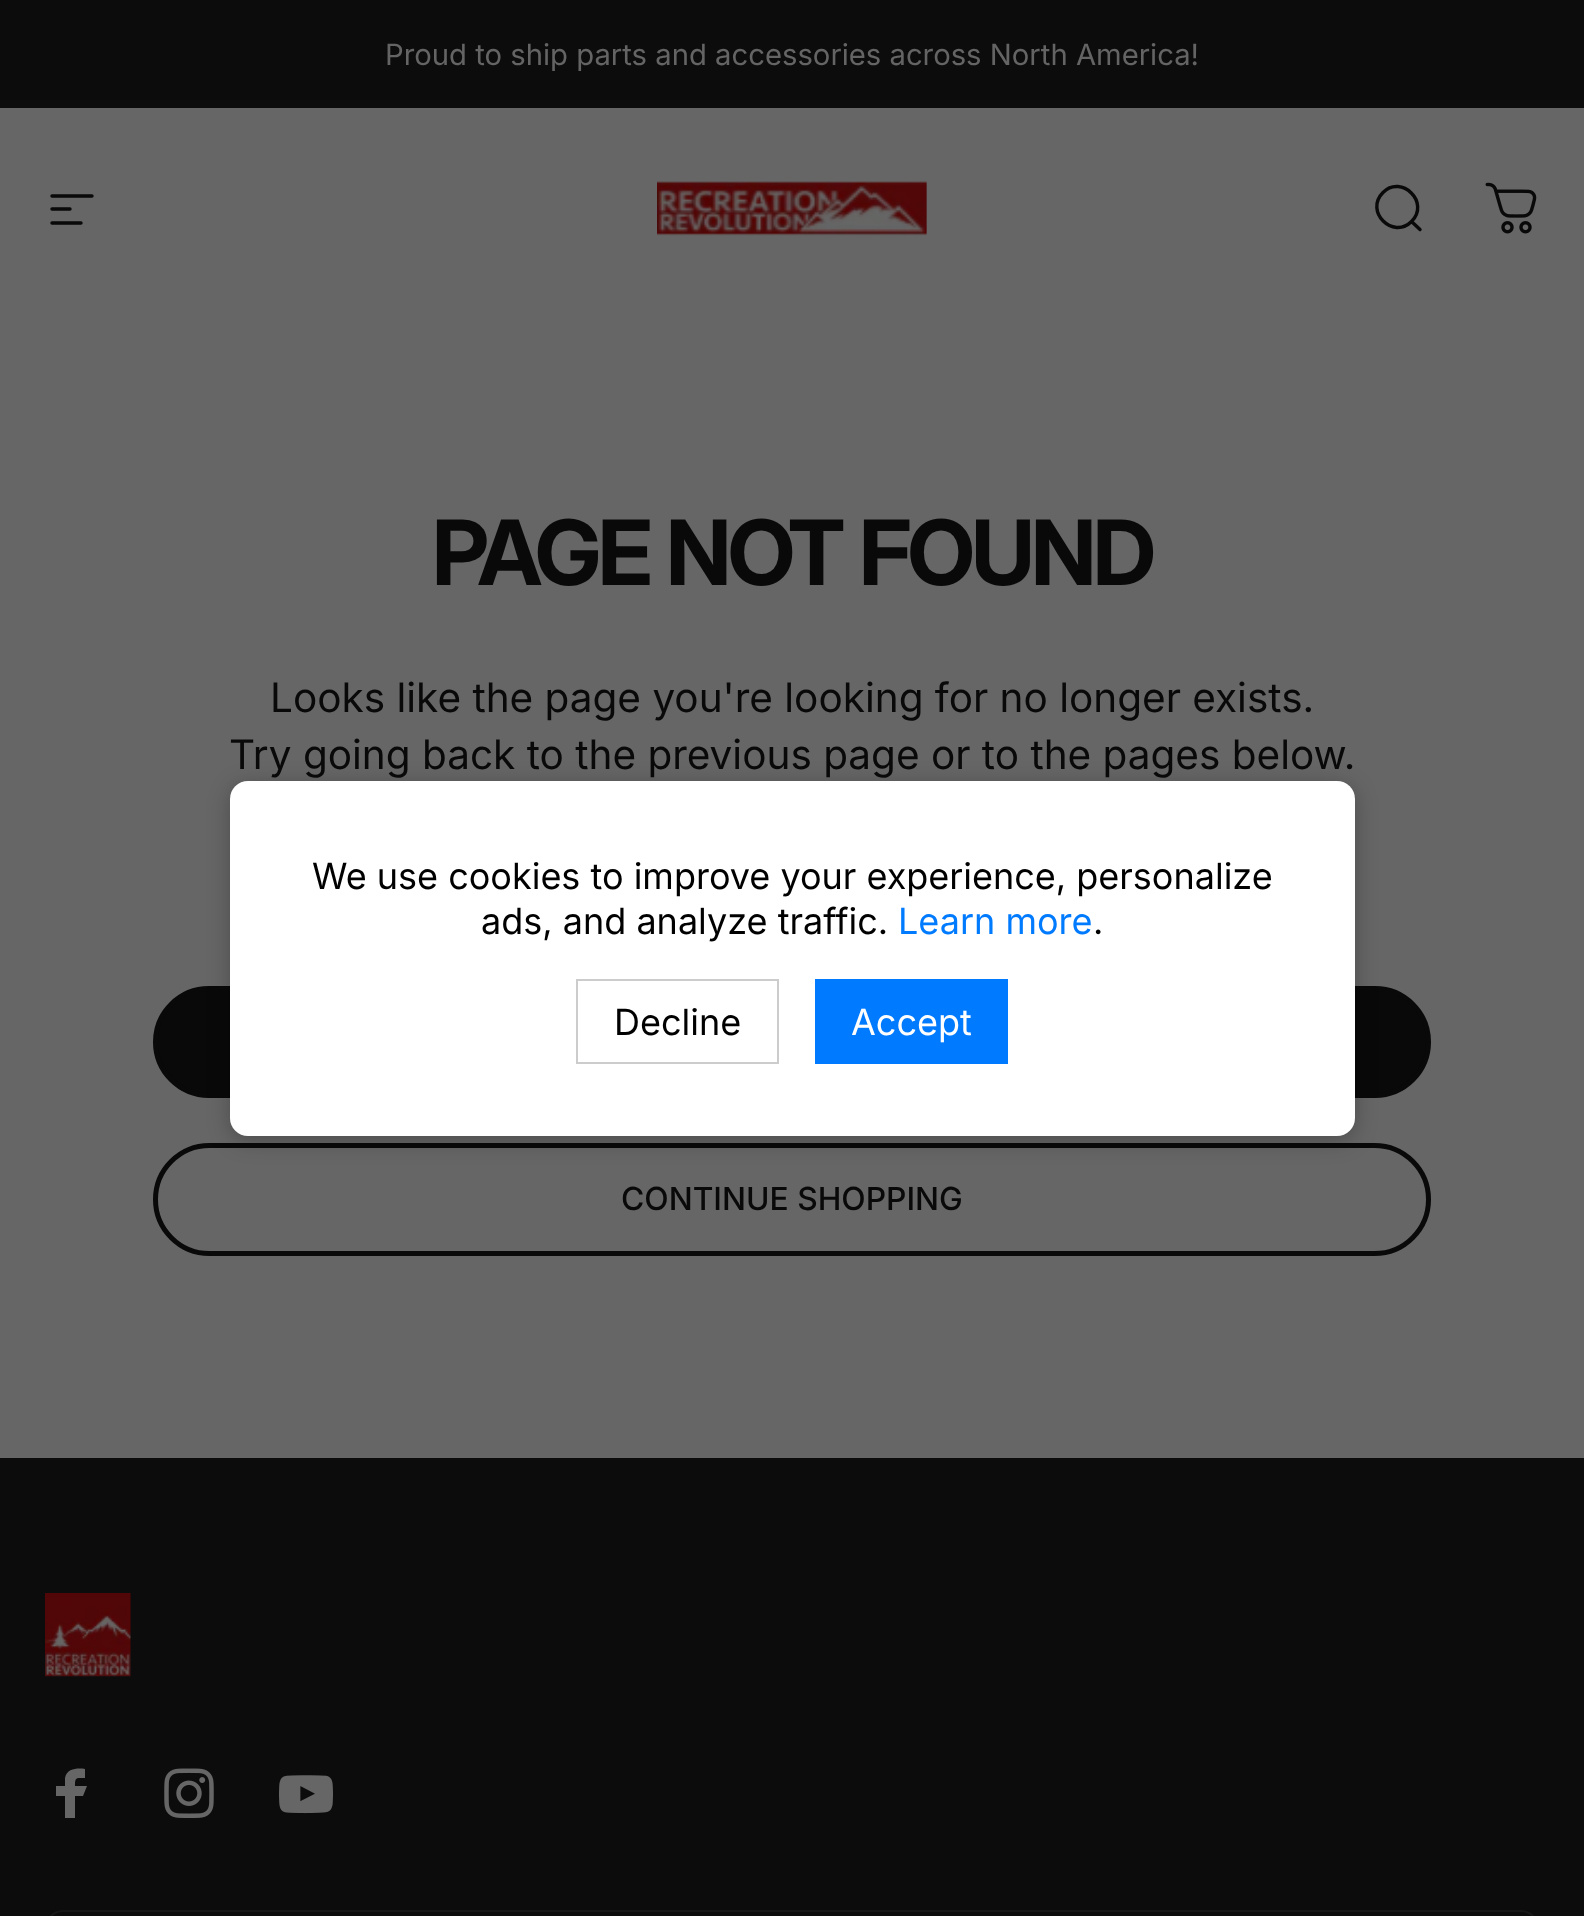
<svg xmlns="http://www.w3.org/2000/svg" xmlns:xlink="http://www.w3.org/1999/xlink" width="1584" height="1916" viewBox="0 0 1584 1916">
<style>
.cls-1{font:29.25px Inter;fill:#646464}
.cls-2{font:bold 90px Inter;letter-spacing:-3.5px;fill:#090909}
.cls-3{font:40.5px Inter;fill:#090909}
.cls-4{font:500 31.75px Inter;fill:#090909}
.cls-5{font:36px Inter;fill:#000000}
.cls-6{font:36px Inter;fill:#007bff}
.cls-7{font:36px Inter;fill:#ffffff}
</style>
<rect width="100%" height="100%" fill="#666666"/>
<rect fill="#0c0c0c" x="0" y="0" width="1584" height="108"/>
<path fill="none" stroke="#090909" stroke-width="3.4" stroke-linecap="round" d="M52 196H92M52 209H70M52 223H81"/>
<image xlink:href="image0.png" x="657" y="181" width="270" height="55"/>
<path fill="none" stroke="#090909" stroke-width="3.4" stroke-linecap="round" d="M1420 229.5L1411.5 221.5M1411.5 221.5C1430.5 202.5 1401.5 174 1383 192.5C1364 211.5 1393 240 1411.5 221.5Z"/>
<image xlink:href="image1.png" x="1485" y="182" width="52" height="52"/>
<rect fill="#090909" stroke="#090909" stroke-width="5" x="155.5" y="988.5" width="1273" height="107" rx="53.5"/>
<rect fill="none" stroke="#090909" stroke-width="5" x="155.5" y="1145.5" width="1273" height="108" rx="54"/>
<rect fill="#0c0c0c" x="0" y="1458" width="1584" height="458"/>
<image xlink:href="image2.png" x="45" y="1593" width="86" height="84"/>
<path fill="#666666" d="M65 1818V1796H56V1786H65V1778C67 1768 78 1768 85 1769V1778C76 1778 75 1777 75 1786H87L83 1796H75V1818Z"/>
<image xlink:href="image3.png" x="164" y="1768" width="50" height="50"/>
<image xlink:href="image4.png" x="279" y="1775" width="54" height="39"/>
<path fill="#171717" fill-rule="evenodd" d="M63 1910H1521C1531 1910 1539 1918 1539 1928V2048H45V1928C45 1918 53 1910 63 1910ZM63 1912H1521C1530 1912 1537 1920 1537 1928V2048H47V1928C47 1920 54 1912 63 1912Z"/>
<rect fill="#000000" fill-opacity="0.25" filter="blur(11px)" x="230" y="785" width="1125" height="356" rx="18"/>
<rect fill="#ffffff" x="230" y="781" width="1125" height="355" rx="18"/>
<rect fill="none" stroke="#cccccc" stroke-width="2" x="577" y="980" width="201" height="83"/>
<rect fill="#007bff" x="815" y="979" width="193" height="85"/>
<text class="cls-1" x="385" y="65">Proud to ship parts and accessories across North America!</text>
<text class="cls-2" x="432" y="585">PAGE</text>
<text class="cls-2" x="666" y="585">NOT</text>
<text class="cls-2" x="859" y="585">FOUND</text>
<text class="cls-3" x="270" y="712">Looks like the page you're looking for no longer exists.</text>
<text class="cls-3" x="229" y="769">Try going back to the previous page or to the pages below.</text>
<text class="cls-4" x="621" y="1210">CONTINUE SHOPPING</text>
<text class="cls-5" x="312" y="889">We use cookies to improve your experience, personalize</text>
<text class="cls-5" x="481" y="934">ads, and analyze traffic.</text>
<text class="cls-6" x="898" y="934">Learn more</text>
<text class="cls-5" x="1093" y="934">.</text>
<text class="cls-5" x="614" y="1035">Decline</text>
<text class="cls-7" x="851" y="1035">Accept</text>
</svg>
